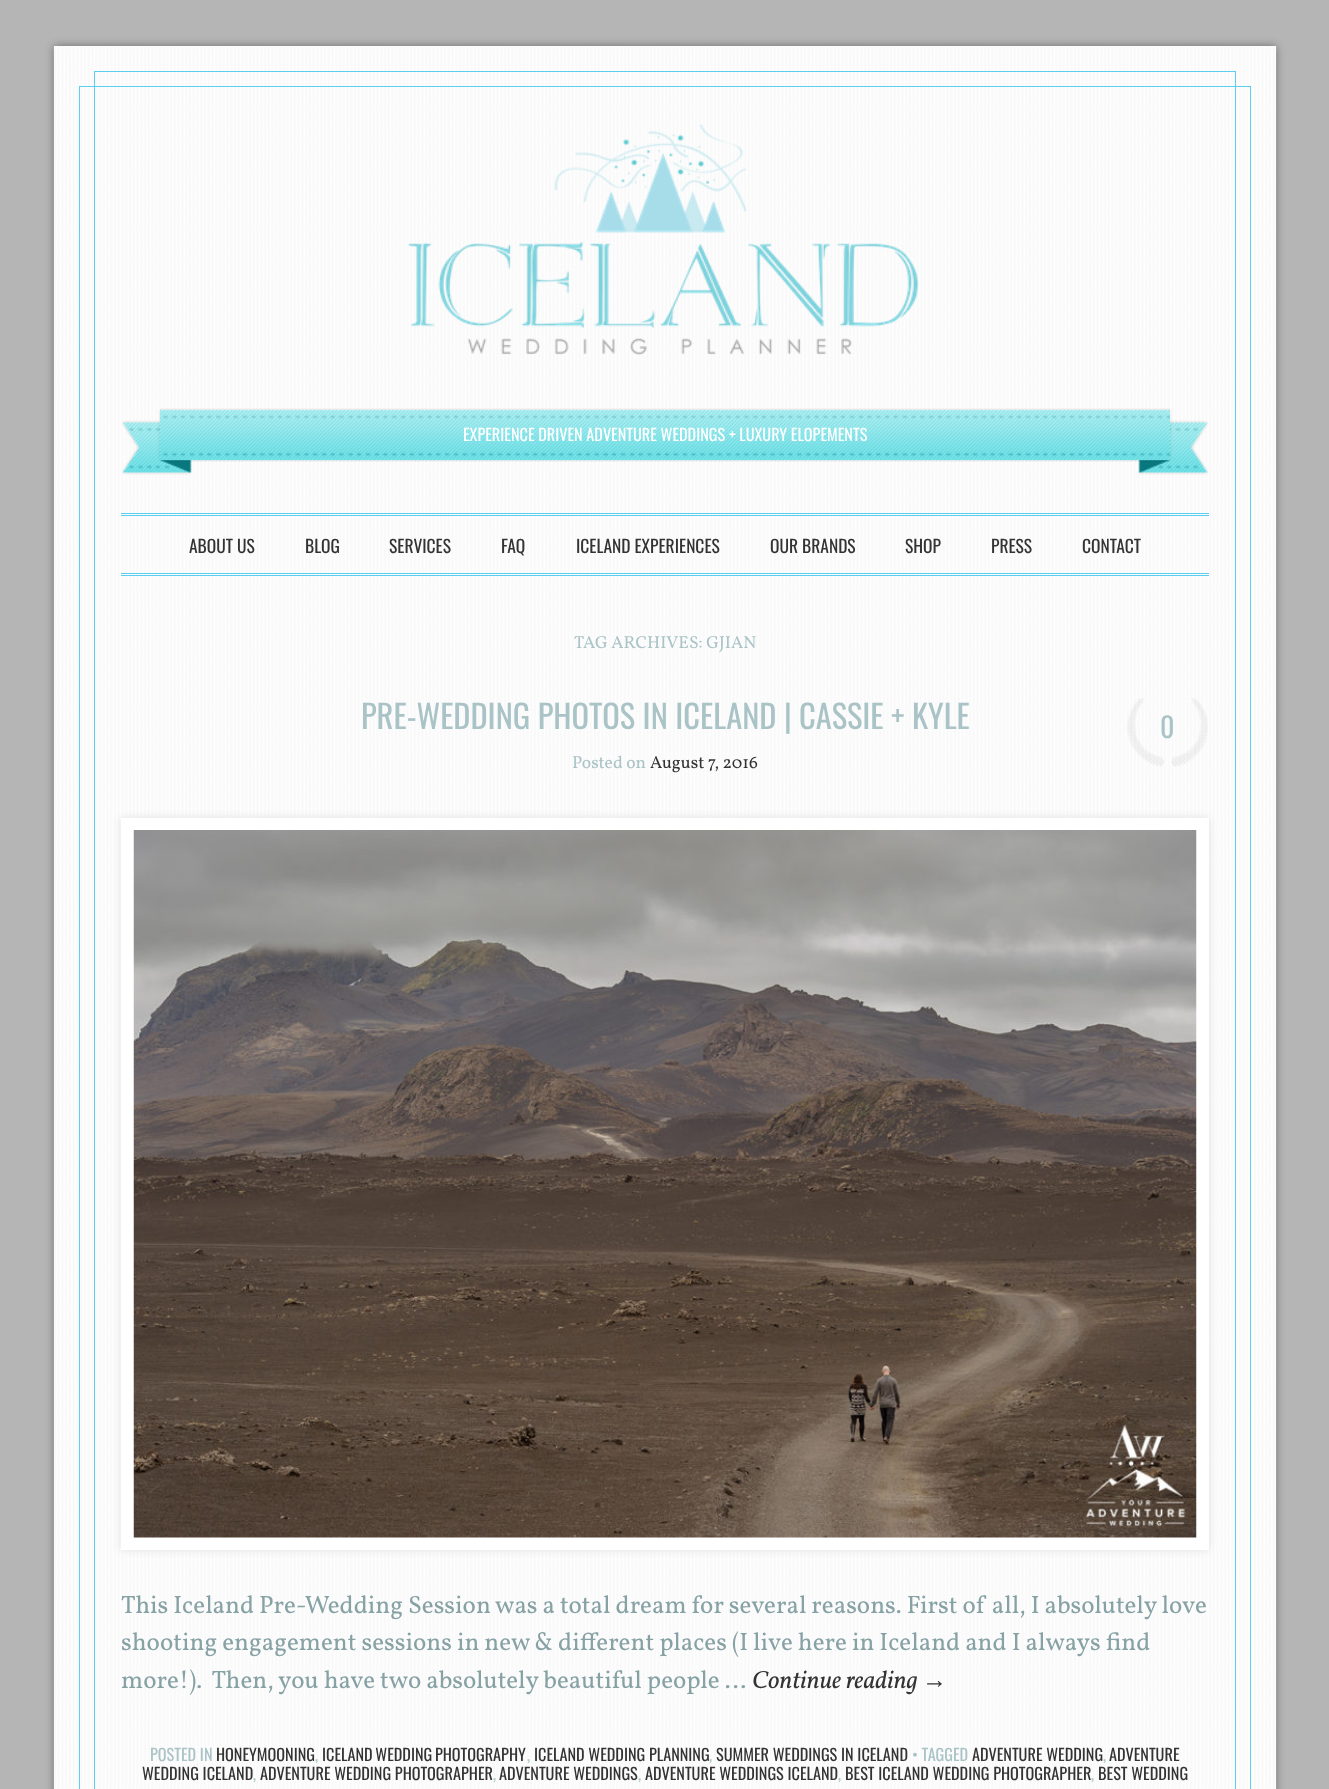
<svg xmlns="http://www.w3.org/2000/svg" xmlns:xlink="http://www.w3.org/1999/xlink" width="1329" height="1789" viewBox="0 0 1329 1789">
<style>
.cls-1{font:16.25px Oswald;fill:#ffffff}
.cls-2{font:17.5px Oswald;fill:#333333}
.cls-3{font:17.5px Vollkorn;fill:#a9c3c6}
.cls-4{font:32.5px Oswald;fill:#a9c3c6}
.cls-5{font:28px Oswald;fill:#a9c3c6}
.cls-6{font:17.5px Vollkorn;fill:#333333}
.cls-7{font:25px Vollkorn;fill:#87a2a5}
.cls-8{font:italic 25px Vollkorn;fill:#333333}
.cls-9{font:italic 25px Liberation Serif;fill:#333333}
.cls-10{font:16.25px Oswald;fill:#a9c3c6}
.cls-11{font:16.25px Oswald;fill:#333333}
</style>
<rect width="100%" height="100%" fill="#b5b5b5"/>
<rect fill="#000000" fill-opacity="0.4" filter="blur(4px)" x="54" y="46" width="1222" height="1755"/>
<rect fill="#ffffff" x="54" y="46" width="1222" height="1743"/>
<image xlink:href="image0.png" x="53" y="46" width="1224" height="1743"/>
<rect fill="none" stroke="#5cceee" x="79.5" y="86.5" width="1171" height="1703"/>
<rect fill="none" stroke="#5cceee" x="94.5" y="71.5" width="1141" height="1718"/>
<image xlink:href="image1.png" x="408" y="124" width="511" height="231"/>
<image xlink:href="image2.png" x="122" y="410" width="70" height="65"/>
<image xlink:href="image4.png" x="1138" y="410" width="70" height="65"/>
<image xlink:href="image3.png" x="160" y="408" width="1010" height="54"/>
<rect fill="#5cceee" x="121" y="513" width="1088" height="1"/>
<rect fill="#5cceee" x="121" y="515" width="1088" height="1"/>
<rect fill="#5cceee" x="121" y="573" width="1088" height="1"/>
<rect fill="#5cceee" x="121" y="575" width="1088" height="1"/>
<image xlink:href="image5.png" x="1127" y="698" width="81" height="69"/>
<rect fill="#000000" fill-opacity="0.1" filter="blur(4px)" x="121" y="818" width="1088" height="732"/>
<rect fill="#ffffff" x="121" y="818" width="1088" height="732"/>
<image xlink:href="image6.png" x="133" y="830" width="1064" height="708"/>
<text class="cls-1" x="463" y="441">EXPERIENCE DRIVEN ADVENTURE WEDDINGS + LUXURY ELOPEMENTS</text>
<text class="cls-2" x="189" y="553">ABOUT US</text>
<text class="cls-2" x="305" y="553">BLOG</text>
<text class="cls-2" x="389" y="553">SERVICES</text>
<text class="cls-2" x="501" y="553">FAQ</text>
<text class="cls-2" x="576" y="553">ICELAND EXPERIENCES</text>
<text class="cls-2" x="770" y="553">OUR BRANDS</text>
<text class="cls-2" x="905" y="553">SHOP</text>
<text class="cls-2" x="991" y="553">PRESS</text>
<text class="cls-2" x="1082" y="553">CONTACT</text>
<text class="cls-3" x="574" y="648">TAG ARCHIVES: GJIAN</text>
<text class="cls-4" x="361" y="729">PRE-WEDDING PHOTOS IN ICELAND | CASSIE + KYLE</text>
<text class="cls-5" x="1160" y="738">0</text>
<text class="cls-3" x="572" y="768">Posted on</text>
<text class="cls-6" x="650" y="768">August 7, 2016</text>
<text class="cls-7" xml:space="preserve"><tspan x="121" y="1613">This Iceland Pre-Wedding Session was a total dream for several reasons. First of all, I absolutely love</tspan><tspan x="121" y="1650">shooting engagement sessions in new &amp; different places (I live here in Iceland and I always find</tspan><tspan x="121" y="1688">more!).  Then, you have two absolutely beautiful people …</tspan></text>
<text class="cls-8" x="752" y="1688">Continue reading</text>
<text class="cls-9" x="922" y="1688">→</text>
<text class="cls-10" x="150" y="1761">POSTED IN</text>
<text class="cls-11" x="216" y="1761">HONEYMOONING</text>
<text class="cls-10" x="315" y="1761">,</text>
<text class="cls-11" x="322" y="1761" word-spacing="-1">ICELAND WEDDING PHOTOGRAPHY</text>
<text class="cls-10" x="527" y="1761">,</text>
<text class="cls-11" x="534" y="1761">ICELAND WEDDING PLANNING</text>
<text class="cls-10" x="709" y="1761">,</text>
<text class="cls-11" x="716" y="1761">SUMMER WEDDINGS IN ICELAND</text>
<text class="cls-10" x="912" y="1761">• TAGGED</text>
<text class="cls-11" x="972" y="1761">ADVENTURE WEDDING</text>
<text class="cls-10" x="1103" y="1761">,</text>
<text class="cls-11" x="1109" y="1761">ADVENTURE</text>
<text class="cls-11" x="142" y="1780">WEDDING ICELAND</text>
<text class="cls-10" x="253" y="1780">,</text>
<text class="cls-11" x="260" y="1780">ADVENTURE WEDDING PHOTOGRAPHER</text>
<text class="cls-10" x="493" y="1780">,</text>
<text class="cls-11" x="499" y="1780">ADVENTURE WEDDINGS</text>
<text class="cls-10" x="638" y="1780">,</text>
<text class="cls-11" x="645" y="1780">ADVENTURE WEDDINGS ICELAND</text>
<text class="cls-10" x="838" y="1780">,</text>
<text class="cls-11" x="845" y="1780">BEST ICELAND WEDDING PHOTOGRAPHER</text>
<text class="cls-10" x="1091" y="1780">,</text>
<text class="cls-11" x="1098" y="1780">BEST WEDDING</text>
</svg>
